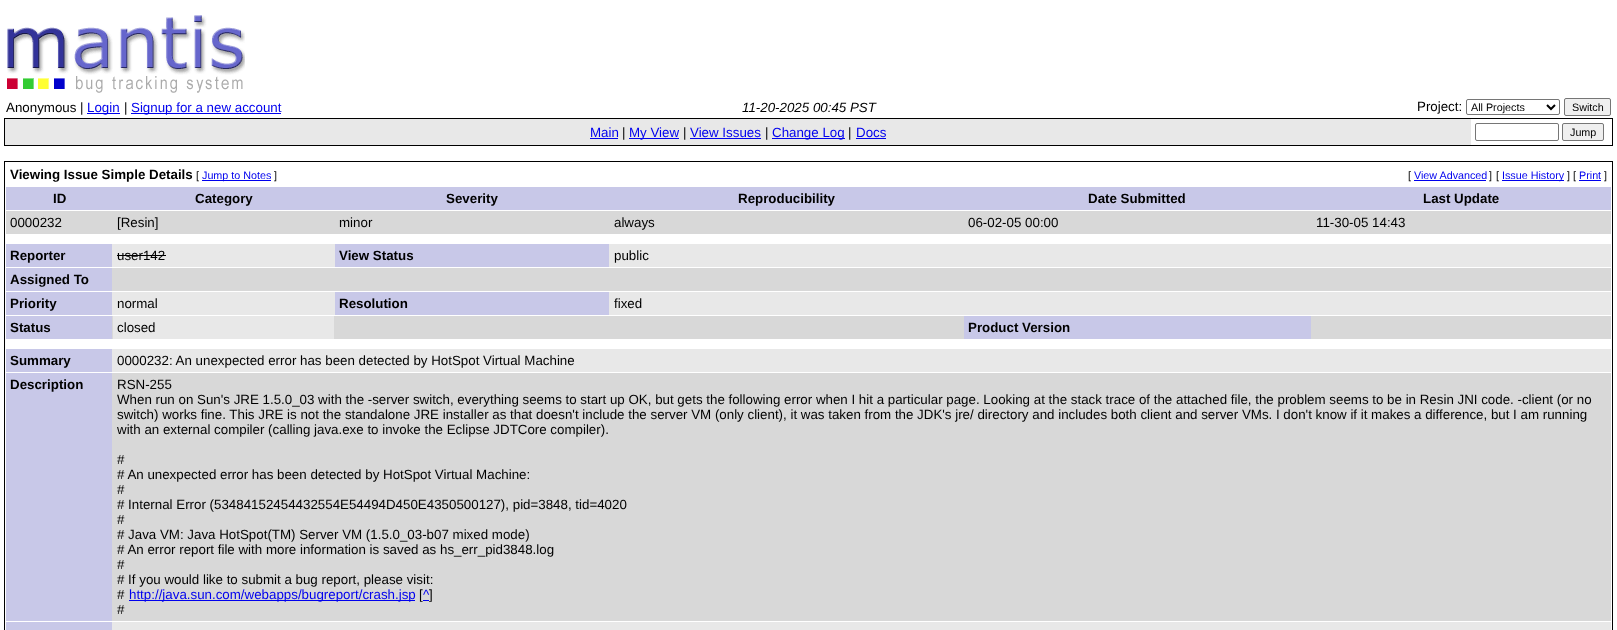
<svg xmlns="http://www.w3.org/2000/svg" xmlns:xlink="http://www.w3.org/1999/xlink" width="1617" height="630" viewBox="0 0 1617 630">
<style>
.cls-1{font:13.33px Liberation Sans;fill:#000000}
.cls-2{font:13.33px Liberation Sans;fill:#0000ee}
.cls-3{font:italic 13.33px Liberation Sans;fill:#000000}
.cls-4{font:10.75px Liberation Sans;fill:#000000}
.cls-5{font:bold 13.33px Liberation Sans;fill:#000000}
.cls-6{font:10.75px Liberation Sans;fill:#0000ee}
</style>
<rect width="100%" height="100%" fill="#ffffff"/>
<image xlink:href="image0.png" x="7" y="15" width="238" height="78"/>
<rect fill="#0000ee" x="87" y="113" width="33" height="1"/>
<rect fill="#0000ee" x="131" y="113" width="150" height="1"/>
<rect fill="none" stroke="#767676" x="1466.5" y="99.5" width="93" height="15" rx="1.5"/>
<path fill="none" stroke="#000000" stroke-width="2" d="M1547 105L1551 109L1555 105"/>
<rect fill="#efefef" stroke="#767676" x="1564.5" y="98.5" width="46" height="17" rx="1.5"/>
<rect fill="none" stroke="#000000" x="4.5" y="118.5" width="1608" height="27"/>
<rect fill="#e8e8e8" x="5" y="119" width="1466" height="26"/>
<rect fill="#0000ee" x="590" y="138" width="28" height="1"/>
<rect fill="#0000ee" x="629" y="138" width="50" height="1"/>
<rect fill="#0000ee" x="690" y="138" width="71" height="1"/>
<rect fill="#0000ee" x="772" y="138" width="73" height="1"/>
<rect fill="#0000ee" x="856" y="138" width="30" height="1"/>
<rect fill="none" stroke="#767676" x="1475.5" y="123.5" width="83" height="17" rx="1.5"/>
<rect fill="#efefef" stroke="#767676" x="1562.5" y="123.5" width="41" height="17" rx="1.5"/>
<rect fill="none" stroke="#000000" x="4.5" y="161.5" width="1608" height="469"/>
<rect fill="#0000ee" x="202" y="180" width="69" height="1"/>
<rect fill="#0000ee" x="1414" y="180" width="72" height="1"/>
<rect fill="#0000ee" x="1502" y="180" width="62" height="1"/>
<rect fill="#0000ee" x="1579" y="180" width="22" height="1"/>
<rect fill="#c8c8e8" x="6" y="187" width="1605" height="23"/>
<rect fill="#d8d8d8" x="6" y="211" width="1605" height="23"/>
<rect fill="#e8e8e8" x="112" y="244" width="1499" height="23"/>
<rect fill="#c8c8e8" x="6" y="244" width="106" height="23"/>
<rect fill="#000000" x="117" y="255" width="49" height="1"/>
<rect fill="#c8c8e8" x="335" y="244" width="274" height="23"/>
<rect fill="#d8d8d8" x="112" y="268" width="1499" height="23"/>
<rect fill="#c8c8e8" x="6" y="268" width="106" height="23"/>
<rect fill="#e8e8e8" x="112" y="292" width="1499" height="23"/>
<rect fill="#c8c8e8" x="6" y="292" width="106" height="23"/>
<rect fill="#c8c8e8" x="335" y="292" width="274" height="23"/>
<rect fill="#d8d8d8" x="112" y="316" width="1499" height="23"/>
<rect fill="#c8c8e8" x="6" y="316" width="106" height="23"/>
<rect fill="#e8e8e8" x="113" y="316" width="221" height="23"/>
<rect fill="#c8c8e8" x="964" y="316" width="347" height="23"/>
<rect fill="#e8e8e8" x="112" y="349" width="1499" height="23"/>
<rect fill="#c8c8e8" x="6" y="349" width="106" height="23"/>
<rect fill="#d8d8d8" x="112" y="373" width="1499" height="248"/>
<rect fill="#c8c8e8" x="6" y="373" width="106" height="248"/>
<rect fill="#0000ee" x="129" y="600" width="286" height="1"/>
<rect fill="#0000ee" x="423" y="600" width="6" height="1"/>
<rect fill="#e8e8e8" x="112" y="622" width="1499" height="8"/>
<rect fill="#c8c8e8" x="6" y="622" width="106" height="8"/>
<text class="cls-1" x="6" y="112">Anonymous |</text>
<text class="cls-2" x="87" y="112">Login</text>
<text class="cls-1" x="124" y="112">|</text>
<text class="cls-2" x="131" y="112">Signup for a new account</text>
<text class="cls-3" x="742" y="112">11-20-2025 00:45 PST</text>
<text class="cls-1" x="1417" y="111">Project:</text>
<text class="cls-4" x="1471" y="111">All Projects</text>
<text class="cls-4" x="1572" y="111">Switch</text>
<text class="cls-2" x="590" y="137">Main</text>
<text class="cls-1" x="622" y="137">|</text>
<text class="cls-2" x="629" y="137">My View</text>
<text class="cls-1" x="683" y="137">|</text>
<text class="cls-2" x="690" y="137">View Issues</text>
<text class="cls-1" x="765" y="137">|</text>
<text class="cls-2" x="772" y="137">Change Log</text>
<text class="cls-1" x="848" y="137">|</text>
<text class="cls-2" x="856" y="137">Docs</text>
<text class="cls-4" x="1570" y="136">Jump</text>
<text class="cls-5" x="10" y="179">Viewing Issue Simple Details</text>
<text class="cls-4" x="196" y="179">[</text>
<text class="cls-6" x="202" y="179">Jump to Notes</text>
<text class="cls-4" x="274" y="179">]</text>
<text class="cls-4" x="1408" y="179">[</text>
<text class="cls-6" x="1414" y="179">View Advanced</text>
<text class="cls-4" x="1489" y="179">]</text>
<text class="cls-4" x="1496" y="179">[</text>
<text class="cls-6" x="1502" y="179">Issue History</text>
<text class="cls-4" x="1567" y="179">]</text>
<text class="cls-4" x="1573" y="179">[</text>
<text class="cls-6" x="1579" y="179">Print</text>
<text class="cls-4" x="1604" y="179">]</text>
<text class="cls-5" x="53" y="203">ID</text>
<text class="cls-5" x="195" y="203">Category</text>
<text class="cls-5" x="446" y="203">Severity</text>
<text class="cls-5" x="738" y="203">Reproducibility</text>
<text class="cls-5" x="1088" y="203">Date Submitted</text>
<text class="cls-5" x="1423" y="203">Last Update</text>
<text class="cls-1" x="10" y="227">0000232</text>
<text class="cls-1" x="117" y="227">[Resin]</text>
<text class="cls-1" x="339" y="227">minor</text>
<text class="cls-1" x="614" y="227">always</text>
<text class="cls-1" x="968" y="227">06-02-05 00:00</text>
<text class="cls-1" x="1316" y="227">11-30-05 14:43</text>
<text class="cls-5" x="10" y="260">Reporter</text>
<text class="cls-1" x="117" y="260">user142</text>
<text class="cls-5" x="339" y="260">View Status</text>
<text class="cls-1" x="614" y="260">public</text>
<text class="cls-5"><tspan x="10" y="284">Assigned To</tspan><tspan x="10" y="308">Priority</tspan></text>
<text class="cls-1" x="117" y="308">normal</text>
<text class="cls-5" x="339" y="308">Resolution</text>
<text class="cls-1" x="614" y="308">fixed</text>
<text class="cls-5" x="10" y="332">Status</text>
<text class="cls-1" x="117" y="332">closed</text>
<text class="cls-5" x="968" y="332">Product Version</text>
<text class="cls-5" x="10" y="365">Summary</text>
<text class="cls-1" x="117" y="365">0000232: An unexpected error has been detected by HotSpot Virtual Machine</text>
<text class="cls-5" x="10" y="389">Description</text>
<text class="cls-1"><tspan x="117" y="389">RSN-255</tspan><tspan x="117" y="404">When run on Sun's JRE 1.5.0_03 with the -server switch, everything seems to start up OK, but gets the following error when I hit a particular page. Looking at the stack trace of the attached file, the problem seems to be in Resin JNI code. -client (or no</tspan><tspan x="117" y="419">switch) works fine. This JRE is not the standalone JRE installer as that doesn't include the server VM (only client), it was taken from the JDK's jre/ directory and includes both client and server VMs. I don't know if it makes a difference, but I am running</tspan><tspan x="117" y="434">with an external compiler (calling java.exe to invoke the Eclipse JDTCore compiler).</tspan></text>
<text class="cls-1"><tspan x="117" y="464">#</tspan><tspan x="117" y="479"># An unexpected error has been detected by HotSpot Virtual Machine:</tspan><tspan x="117" y="494">#</tspan><tspan x="117" y="509"># Internal Error (53484152454432554E54494D450E4350500127), pid=3848, tid=4020</tspan><tspan x="117" y="524">#</tspan><tspan x="117" y="539"># Java VM: Java HotSpot(TM) Server VM (1.5.0_03-b07 mixed mode)</tspan><tspan x="117" y="554"># An error report file with more information is saved as hs_err_pid3848.log</tspan><tspan x="117" y="569">#</tspan><tspan x="117" y="584"># If you would like to submit a bug report, please visit:</tspan><tspan x="117" y="599">#</tspan></text>
<text class="cls-2" x="129" y="599">http://java.sun.com/webapps/bugreport/crash.jsp</text>
<text class="cls-1" x="419" y="599">[</text>
<text class="cls-2" x="423" y="599">^</text>
<text class="cls-1" x="429" y="599">]</text>
<text class="cls-1" x="117" y="614">#</text>
</svg>
